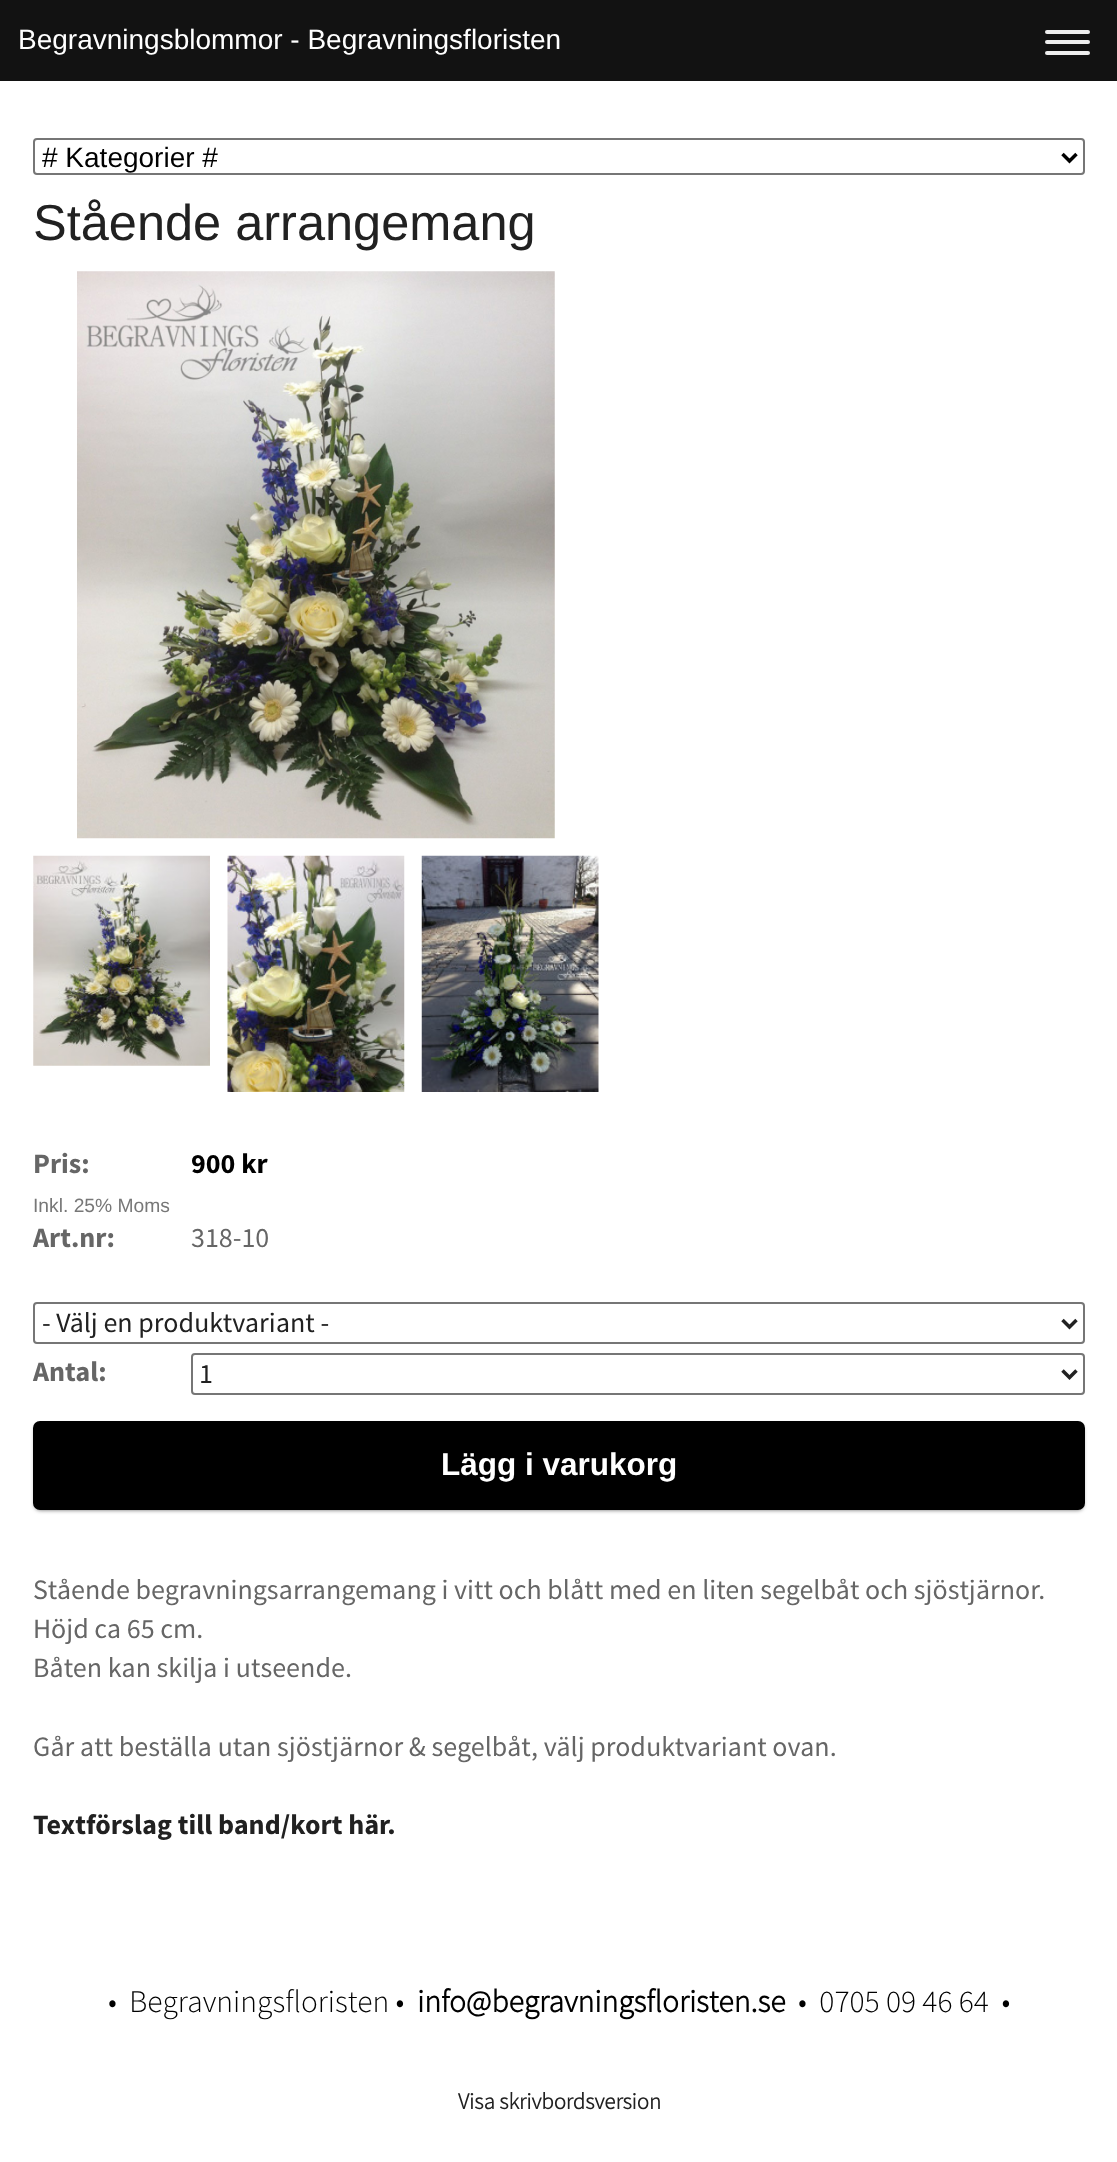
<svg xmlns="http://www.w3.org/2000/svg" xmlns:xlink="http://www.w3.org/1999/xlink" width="1117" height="2162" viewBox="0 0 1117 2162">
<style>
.cls-1{font:28px Liberation Sans;fill:#ffffff}
.cls-2{font:28px Liberation Sans;fill:#000000}
.cls-3{font:50.5px Liberation Sans;fill:#212121}
.cls-4{font:bold 28px 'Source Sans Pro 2';fill:#666666}
.cls-5{font:bold 28px 'Source Sans Pro 2';fill:#000000}
.cls-6{font:19.25px Liberation Sans;fill:#777777}
.cls-7{font:28px Source Sans Pro;fill:#666666}
.cls-8{font:28px Source Sans Pro;fill:#212121}
.cls-9{font:bold 31.5px Liberation Sans;fill:#ffffff}
.cls-10{font:bold 28px 'Source Sans Pro 2';fill:#212121}
.cls-11{font:300 31.5px Source Sans Pro;fill:#000000}
.cls-12{font:bold 31.5px Source Sans Pro;fill:#000000}
.cls-13{font:bold 22.75px Source Sans Pro;fill:#212121}
</style>
<rect width="100%" height="100%" fill="#ffffff"/>
<rect fill="#121212" x="0" y="0" width="1117" height="81"/>
<rect fill="#eeeeee" x="1045" y="30" width="45" height="4" rx="2"/>
<rect fill="#eeeeee" x="1045" y="40" width="45" height="4" rx="2"/>
<rect fill="#eeeeee" x="1045" y="51" width="45" height="4" rx="2"/>
<rect fill="none" stroke="#767676" stroke-width="2" x="34" y="139" width="1050" height="35" rx="3"/>
<path fill="none" stroke="#000000" stroke-width="3.5" d="M1062.5 154L1069.5 161L1076.5 154"/>
<image xlink:href="image0.png" x="77" y="271" width="478" height="568"/>
<image xlink:href="image1.png" x="33" y="855" width="177" height="211"/>
<image xlink:href="image2.png" x="227" y="855" width="178" height="237"/>
<image xlink:href="image3.png" x="421" y="855" width="178" height="237"/>
<rect fill="none" stroke="#767676" stroke-width="2" x="34" y="1303" width="1050" height="40" rx="3"/>
<path fill="none" stroke="#222222" stroke-width="3.5" d="M1062.5 1320L1069.5 1327L1076.5 1320"/>
<rect fill="none" stroke="#767676" stroke-width="2" x="192" y="1354" width="892" height="40" rx="3"/>
<path fill="none" stroke="#222222" stroke-width="3.5" d="M1062.5 1370.5L1069.5 1377.5L1076.5 1370.5"/>
<rect fill="#000000" fill-opacity="0.6" filter="blur(2px)" x="35" y="1425" width="1048" height="85" rx="5"/>
<rect fill="#000000" x="33" y="1421" width="1052" height="89" rx="7"/>
<text class="cls-1" x="18" y="49">Begravningsblommor - Begravningsfloristen</text>
<text class="cls-2" x="42" y="167"># Kategorier #</text>
<text class="cls-3" x="33" y="240">Stående arrangemang</text>
<text class="cls-4" x="33" y="1173">Pris:</text>
<text class="cls-5" x="191" y="1173">900 kr</text>
<text class="cls-6" x="33" y="1212">Inkl. 25% Moms</text>
<text class="cls-4" x="33" y="1247">Art.nr:</text>
<text class="cls-7" x="191" y="1247">318-10</text>
<text class="cls-8" x="42" y="1332">- Välj en produktvariant -</text>
<text class="cls-4" x="33" y="1381">Antal:</text>
<text class="cls-8" x="199" y="1383">1</text>
<text class="cls-9" x="441" y="1475">Lägg i varukorg</text>
<text class="cls-7"><tspan x="33" y="1599">Stående begravningsarrangemang i vitt och blått med en liten segelbåt och sjöstjärnor.</tspan><tspan x="33" y="1638">Höjd ca 65 cm.</tspan><tspan x="33" y="1677">Båten kan skilja i utseende.</tspan></text>
<text class="cls-7" x="33" y="1756">Går att beställa utan sjöstjärnor &amp; segelbåt, välj produktvariant ovan.</text>
<text class="cls-10" x="33" y="1834">Textförslag till band/kort här.</text>
<text class="cls-11" xml:space="preserve" x="108" y="2012">•  Begravningsfloristen •</text>
<text class="cls-12" x="417" y="2012">info@begravningsfloristen.se</text>
<text class="cls-11" xml:space="preserve" x="798" y="2012">•  0705 09 46 64  •</text>
<text class="cls-13" x="458" y="2109">Visa skrivbordsversion</text>
</svg>
